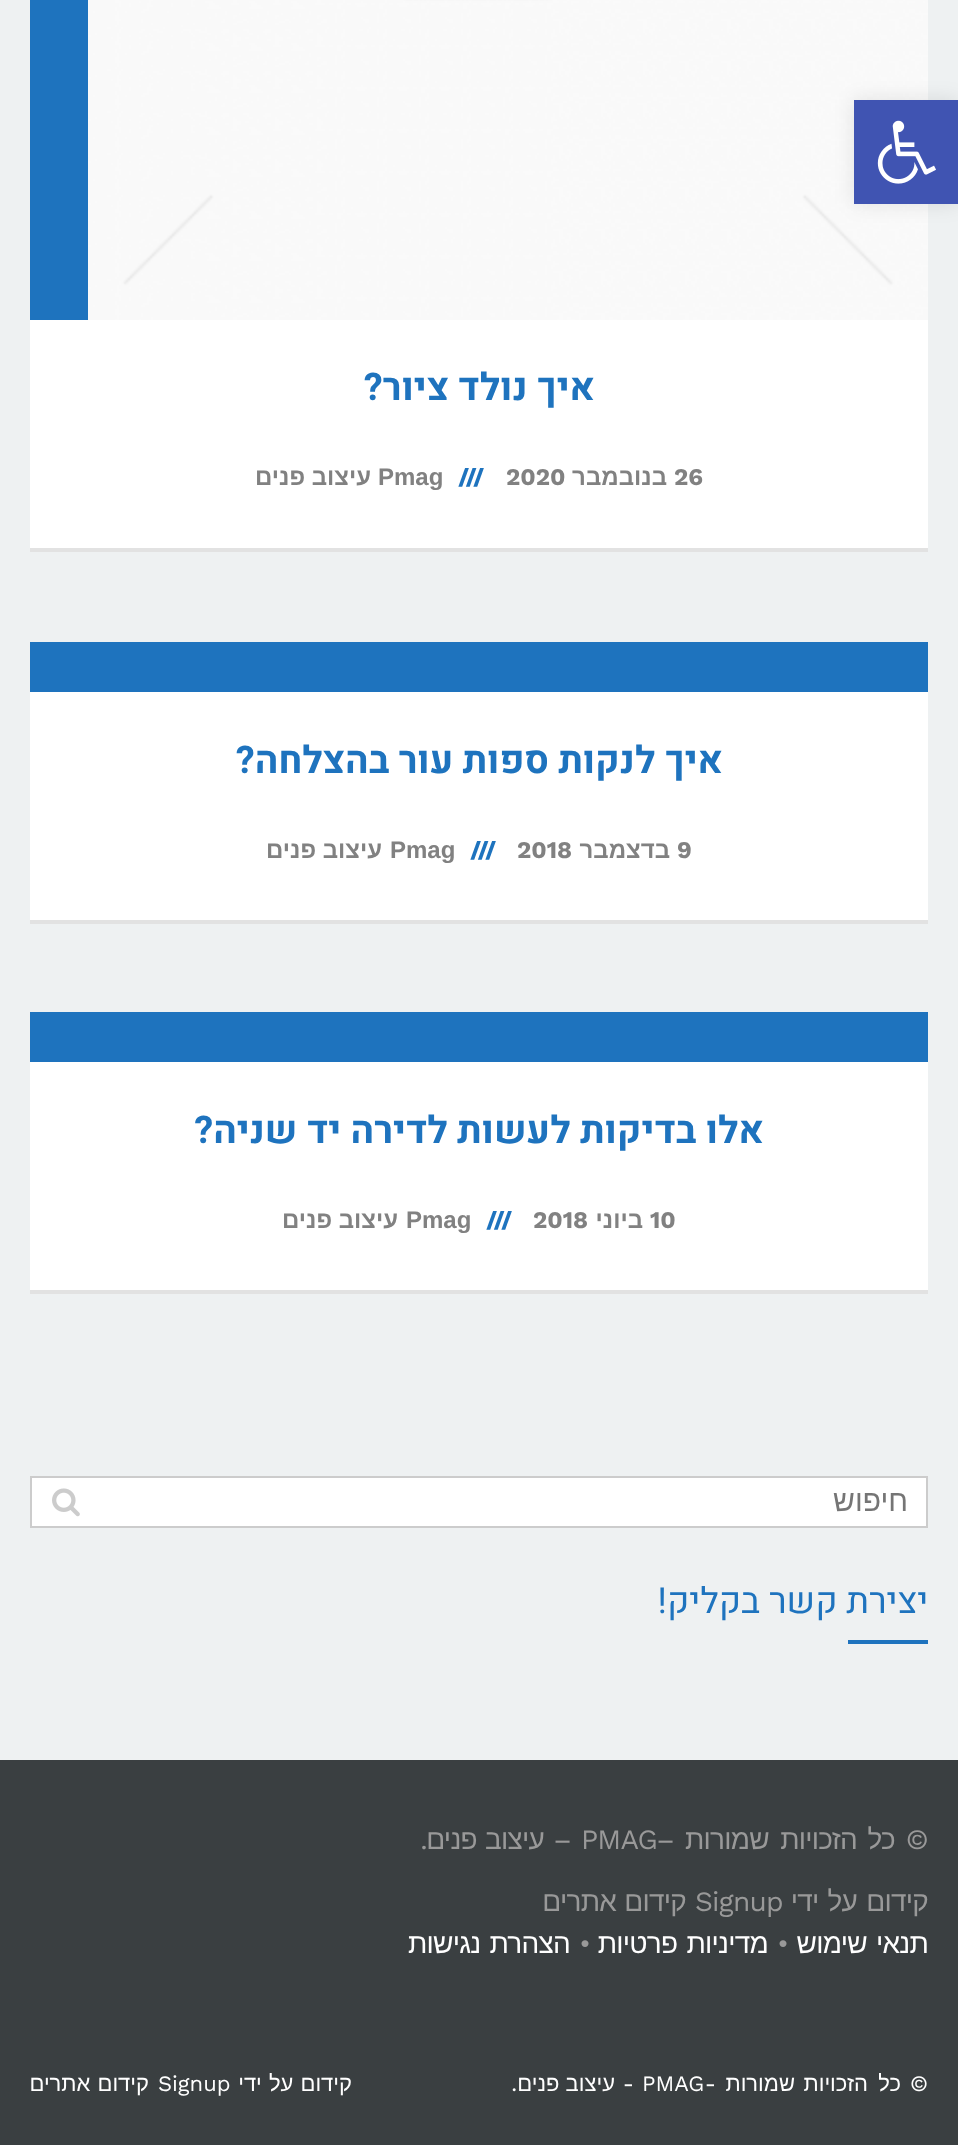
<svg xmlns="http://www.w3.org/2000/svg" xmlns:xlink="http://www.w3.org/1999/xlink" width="958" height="2145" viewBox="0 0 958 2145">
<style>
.cls-1{font:bold 38px Heebo;direction:rtl;fill:#1e73be}
.cls-2{font:bold 24px Work Sans;fill:#818181}
.cls-3{font:bold 24px Liberation Sans;direction:rtl;fill:#818181}
.cls-4{font:bold 24px Work Sans;fill:#1e73be}
.cls-5{font:bold 24px Liberation Sans;fill:#818181}
.cls-6{font:30px Liberation Sans;direction:rtl;fill:#757575}
.cls-7{font:36px Heebo;direction:rtl;fill:#1e73be}
.cls-8{font:28px Work Sans;letter-spacing:-0.75px;direction:rtl;fill:#999999}
.cls-9{font:28px Liberation Sans;letter-spacing:-0.75px;direction:rtl;fill:#999999}
.cls-10{font:28px Work Sans;letter-spacing:-0.75px;fill:#999999}
.cls-11{font:28px Liberation Sans;letter-spacing:-0.75px;direction:rtl;fill:#ffffff}
.cls-12{font:22px Work Sans;direction:rtl;fill:#ffffff}
.cls-13{font:22px Liberation Sans;direction:rtl;fill:#ffffff}
.cls-14{font:22px Work Sans;fill:#ffffff}
</style>
<rect width="100%" height="100%" fill="#eef1f2"/>
<image xlink:href="image1.png" x="88" y="0" width="840" height="320"/>
<rect fill="#000000" fill-opacity="0.1" filter="blur(10px)" x="854" y="100" width="104" height="104"/>
<rect fill="#4054b2" x="854" y="100" width="104" height="104"/>
<image xlink:href="image0.png" x="877" y="120" width="59" height="64"/>
<rect fill="#ffffff" x="30" y="320" width="898" height="228"/>
<rect fill="#e2e2e2" x="30" y="548" width="898" height="4"/>
<rect fill="#1e73be" x="30" y="0" width="58" height="320"/>
<rect fill="#ffffff" x="30" y="692" width="898" height="228"/>
<rect fill="#e2e2e2" x="30" y="920" width="898" height="4"/>
<rect fill="#1e73be" x="30" y="642" width="898" height="50"/>
<rect fill="#ffffff" x="30" y="1062" width="898" height="228"/>
<rect fill="#e2e2e2" x="30" y="1290" width="898" height="4"/>
<rect fill="#1e73be" x="30" y="1012" width="898" height="50"/>
<rect fill="#ffffff" stroke="#cccccc" stroke-width="2" x="31" y="1477" width="896" height="50"/>
<image xlink:href="image2.png" x="52" y="1488" width="28" height="29"/>
<rect fill="#1e73be" x="848" y="1640" width="80" height="4"/>
<rect fill="#3a3f41" x="0" y="1760" width="958" height="385"/>
<text class="cls-1" x="595" y="400">איך נולד ציור?</text>
<text class="cls-2" x="674" y="485">26</text>
<text class="cls-3" x="667" y="485">בנובמבר</text>
<text class="cls-2" x="506" y="485">2020</text>
<text class="cls-4" x="458" y="485">///</text>
<text class="cls-5" x="378" y="485">Pmag</text>
<text class="cls-3" x="371" y="485">עיצוב פנים</text>
<text class="cls-1" x="723" y="773">איך לנקות ספות עור בהצלחה?</text>
<text class="cls-2" x="677" y="858">9</text>
<text class="cls-3" x="670" y="858">בדצמבר</text>
<text class="cls-2" x="517" y="858">2018</text>
<text class="cls-4" x="470" y="858">///</text>
<text class="cls-5" x="390" y="858">Pmag</text>
<text class="cls-3" x="382" y="858">עיצוב פנים</text>
<text class="cls-1" x="764" y="1143">אלו בדיקות לעשות לדירה יד שניה?</text>
<text class="cls-2" x="650" y="1228">10</text>
<text class="cls-3" x="643" y="1228">ביוני</text>
<text class="cls-2" x="533" y="1228">2018</text>
<text class="cls-4" x="486" y="1228">///</text>
<text class="cls-5" x="406" y="1228">Pmag</text>
<text class="cls-3" x="398" y="1228">עיצוב פנים</text>
<text class="cls-6" x="908" y="1511">חיפוש</text>
<text class="cls-7" x="928" y="1613">יצירת קשר בקליק!</text>
<text class="cls-8" x="928" y="1849">©</text>
<text class="cls-9" x="895" y="1849">כל</text>
<text class="cls-9" x="857" y="1849">הזכויות</text>
<text class="cls-9" x="769" y="1849">שמורות</text>
<text class="cls-8" x="674" y="1849">–</text>
<text class="cls-10" x="581" y="1849">PMAG</text>
<text class="cls-8" x="571" y="1849">–</text>
<text class="cls-9" x="544" y="1849" word-spacing="1">עיצוב פנים</text>
<text class="cls-8" x="427" y="1849">.</text>
<text class="cls-9" x="928" y="1911" word-spacing="2">קידום על ידי</text>
<text class="cls-10" x="695" y="1911">Signup</text>
<text class="cls-9" x="686" y="1911" word-spacing="1">קידום אתרים</text>
<text class="cls-11" x="928" y="1953" word-spacing="2">תנאי שימוש</text>
<text class="cls-10" x="777" y="1953">•</text>
<text class="cls-11" x="768" y="1953" word-spacing="2">מדיניות פרטיות</text>
<text class="cls-10" x="579" y="1953">•</text>
<text class="cls-11" x="570" y="1953" word-spacing="2">הצהרת נגישות</text>
<text class="cls-12" x="928" y="2091">©</text>
<text class="cls-13" x="901" y="2091">כל</text>
<text class="cls-13" x="868" y="2091">הזכויות</text>
<text class="cls-13" x="795" y="2091">שמורות</text>
<text class="cls-12" x="716" y="2091">-</text>
<text class="cls-14" x="642" y="2091">PMAG</text>
<text class="cls-12" x="634" y="2091">-</text>
<text class="cls-13" x="615" y="2091">עיצוב פנים</text>
<text class="cls-12" x="517" y="2091">.</text>
<text class="cls-13" x="352" y="2091" word-spacing="1">קידום על ידי</text>
<text class="cls-14" x="158" y="2091">Signup</text>
<text class="cls-13" x="149" y="2091" word-spacing="1">קידום אתרים</text>
</svg>
